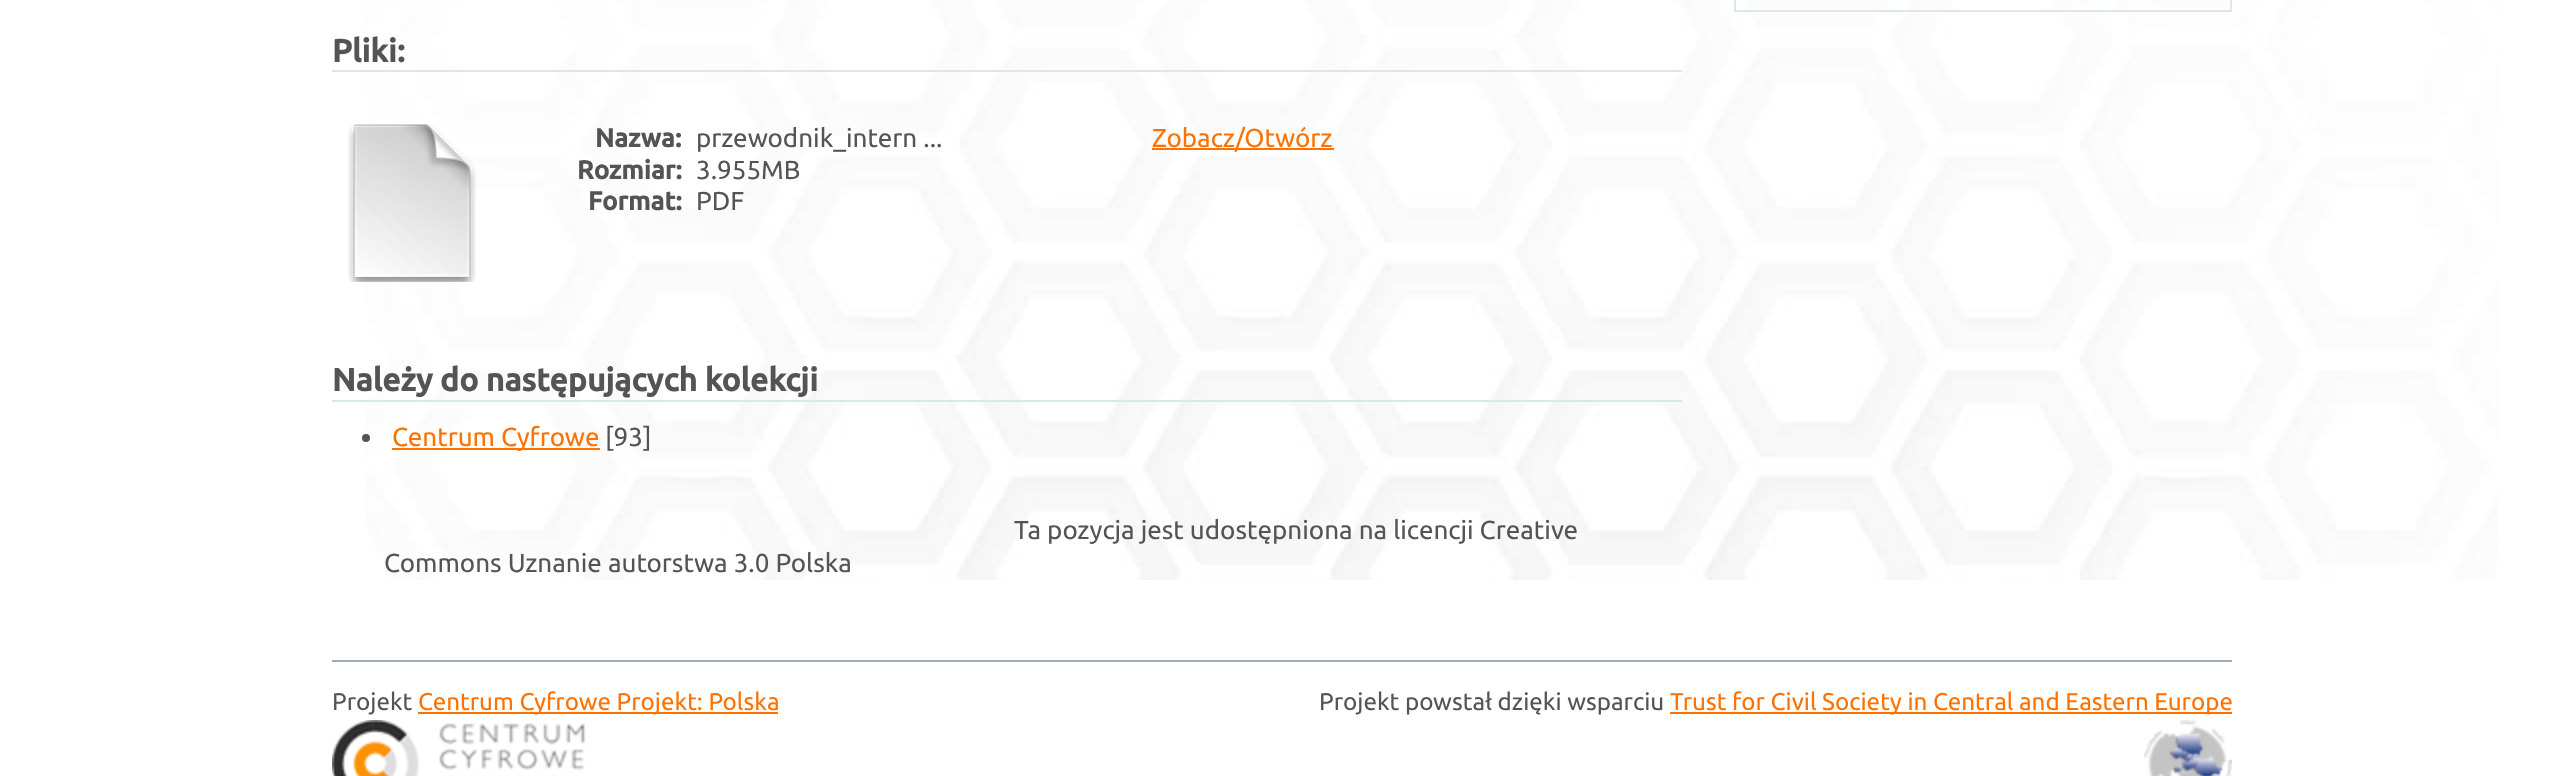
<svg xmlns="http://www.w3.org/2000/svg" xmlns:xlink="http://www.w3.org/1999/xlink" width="2563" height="776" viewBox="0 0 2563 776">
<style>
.cls-1{font:bold 32px Ubuntu;fill:#545454}
.cls-2{font:bold 26px Ubuntu;fill:#545454}
.cls-3{font:26px Ubuntu;fill:#545454}
.cls-4{font:26px Ubuntu;fill:#ff7200}
.cls-5{font:24.2px Ubuntu;fill:#545454}
.cls-6{font:24.2px Ubuntu;fill:#ff7200}
</style>
<rect width="100%" height="100%" fill="#ffffff"/>
<image xlink:href="image0.png" x="365" y="0" width="2134" height="580"/>
<rect fill="#d8e8eb" x="2230" y="0" width="2" height="12"/>
<rect fill="#d8e8eb" x="1734" y="10" width="498" height="2"/>
<rect fill="#d8e8eb" x="1734" y="0" width="2" height="12"/>
<rect fill="#d8e8eb" x="332" y="70" width="1350" height="2"/>
<image xlink:href="image1.png" x="348" y="124" width="128" height="158"/>
<rect fill="#ff7200" x="1152" y="148" width="182" height="2"/>
<rect fill="#d8e8eb" x="332" y="400" width="1350" height="2"/>
<circle fill="#545454" cx="366" cy="438" r="4"/>
<rect fill="#ff7200" x="392" y="448" width="208" height="2"/>
<rect fill="#9cacba" x="332" y="660" width="1900" height="2"/>
<rect fill="#ff7200" x="418" y="712" width="360" height="2"/>
<image xlink:href="image2.png" x="332" y="720" width="254" height="56"/>
<rect fill="#ff7200" x="1670" y="712" width="562" height="2"/>
<image xlink:href="image3.png" x="2144" y="720" width="88" height="56"/>
<text class="cls-1" x="332" y="62">Pliki:</text>
<text class="cls-2" x="595" y="147">Nazwa:</text>
<text class="cls-3" x="696" y="147">przewodnik_intern ...</text>
<text class="cls-2" x="577" y="179">Rozmiar:</text>
<text class="cls-3" x="696" y="179">3.955MB</text>
<text class="cls-2" x="588" y="210">Format:</text>
<text class="cls-3" x="696" y="210">PDF</text>
<text class="cls-4" x="1152" y="147">Zobacz/Otwórz</text>
<text class="cls-1" x="332" y="391">Należy do następujących kolekcji</text>
<text class="cls-4" x="392" y="446">Centrum Cyfrowe</text>
<text class="cls-3" x="605" y="446">[93]</text>
<text class="cls-3" x="1014" y="539">Ta pozycja jest udostępniona na licencji Creative</text>
<text class="cls-3" x="384" y="572">Commons Uznanie autorstwa 3.0 Polska</text>
<text class="cls-5" x="332" y="710">Projekt</text>
<text class="cls-6" x="418" y="710">Centrum Cyfrowe Projekt: Polska</text>
<text class="cls-5" x="1319" y="710">Projekt powstał dzięki wsparciu</text>
<text class="cls-6" x="1670" y="710">Trust for Civil Society in Central and Eastern Europe</text>
</svg>
